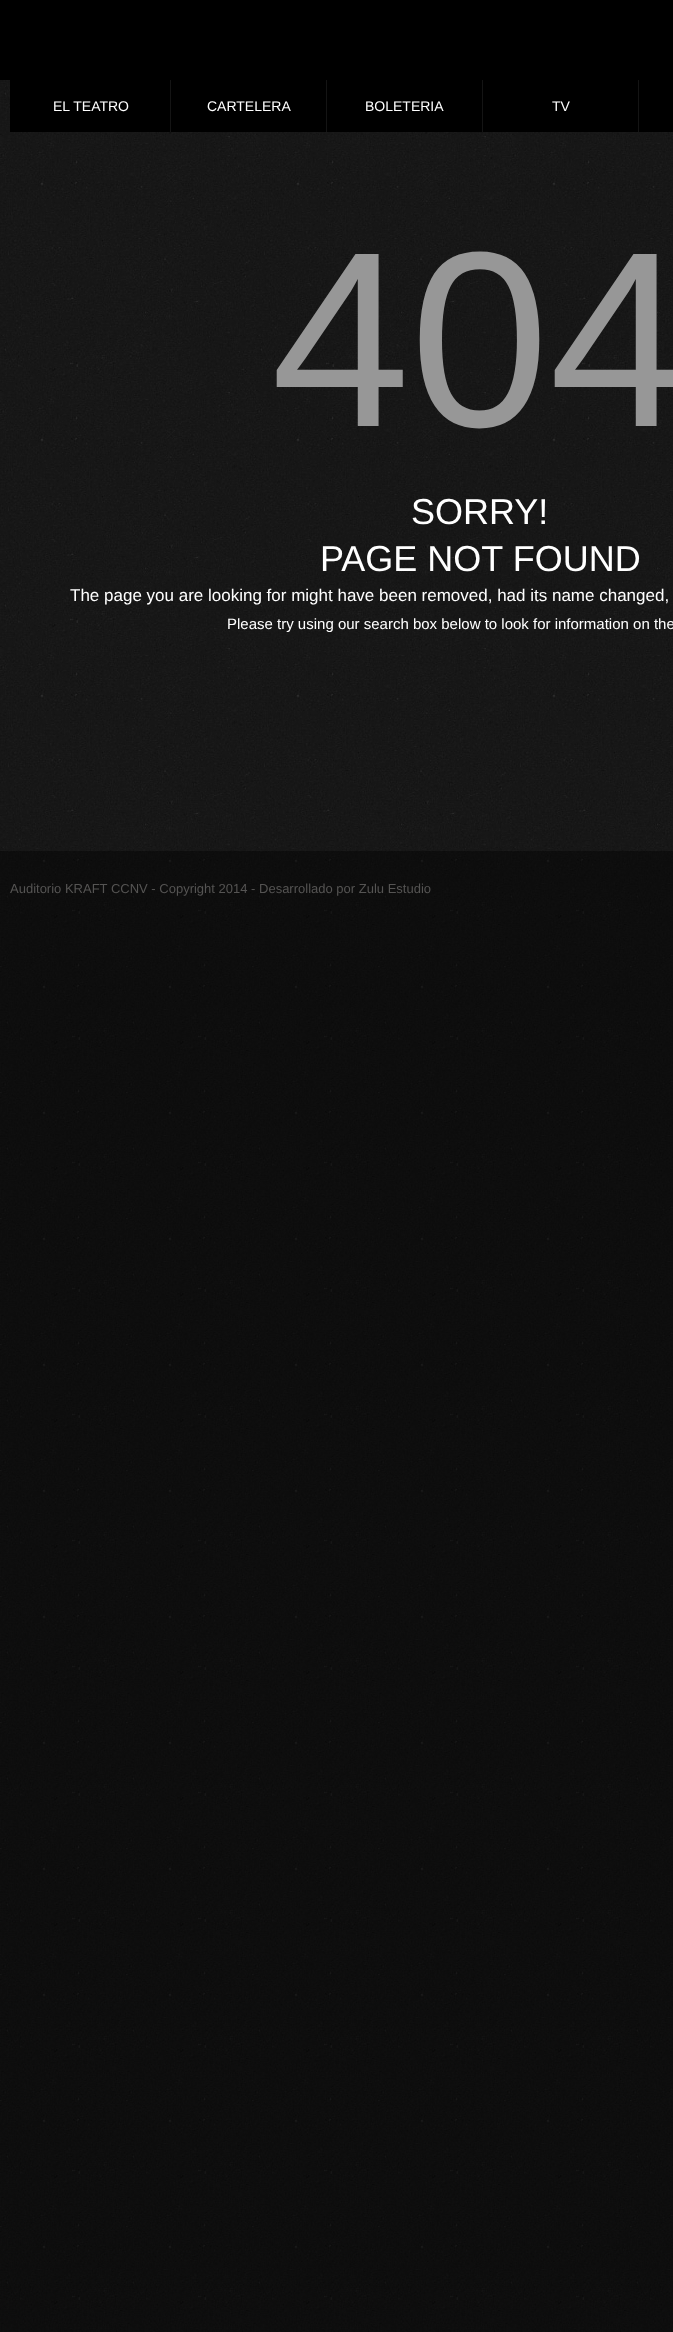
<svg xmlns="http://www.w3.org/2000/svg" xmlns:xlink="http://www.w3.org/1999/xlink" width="673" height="2332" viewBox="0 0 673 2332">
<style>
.cls-1{font:14px Liberation Sans;fill:#ffffff}
.cls-2{font:250px Liberation Sans;fill:#979797}
.cls-3{font:36px Liberation Sans;fill:#ffffff}
.cls-4{font:17px Liberation Sans;fill:#ffffff}
.cls-5{font:15px Liberation Sans;fill:#ffffff}
.cls-6{font:13px Liberation Sans;fill:#555453}
</style>
<rect width="100%" height="100%" fill="#ffffff"/>
<image xlink:href="image0.png" x="0" y="851" width="673" height="1481"/>
<rect fill="#000000" x="0" y="0" width="673" height="80"/>
<image xlink:href="image1.png" x="0" y="80" width="673" height="771"/>
<rect fill="#000000" x="10" y="80" width="663" height="51"/>
<rect fill="#000000" x="10" y="131" width="663" height="1"/>
<rect fill="#141414" x="170" y="80" width="1" height="52"/>
<rect fill="#141414" x="326" y="80" width="1" height="52"/>
<rect fill="#141414" x="482" y="80" width="1" height="52"/>
<rect fill="#141414" x="638" y="80" width="1" height="52"/>
<text class="cls-1" x="53" y="111">EL TEATRO</text>
<text class="cls-1" x="207" y="111">CARTELERA</text>
<text class="cls-1" x="365" y="111">BOLETERIA</text>
<text class="cls-1" x="552" y="111">TV</text>
<text class="cls-2" x="271" y="426">404</text>
<text class="cls-3" x="411" y="524">SORRY!</text>
<text class="cls-3" x="320" y="571">PAGE NOT FOUND</text>
<text class="cls-4" x="70" y="601">The page you are looking for might have been removed, had its name changed,</text>
<text class="cls-5" x="227" y="629">Please try using our search box below to look for information on the</text>
<text class="cls-6" x="10" y="893">Auditorio KRAFT CCNV - Copyright 2014 - Desarrollado por Zulu Estudio</text>
</svg>
